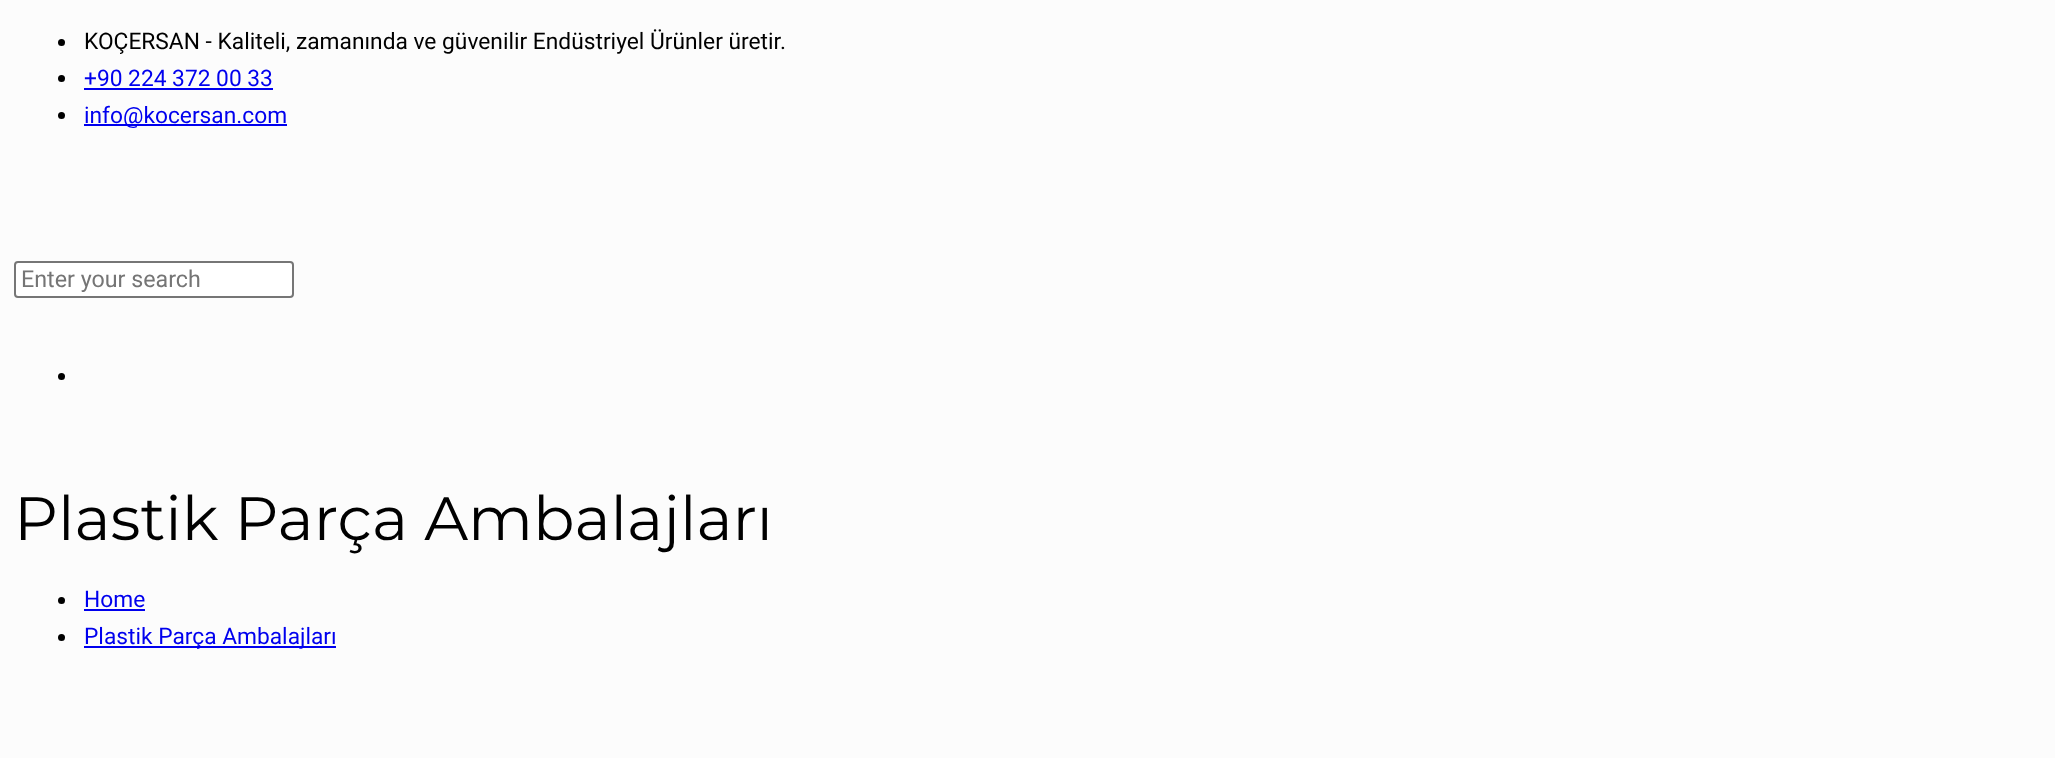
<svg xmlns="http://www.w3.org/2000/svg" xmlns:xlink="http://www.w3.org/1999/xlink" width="2055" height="758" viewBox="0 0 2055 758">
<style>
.cls-1{font:22.75px Roboto;fill:#000000}
.cls-2{font:22.75px Roboto;fill:#0000ee}
.cls-3{font:23.25px Roboto;fill:#757575}
.cls-4{font:61.25px Montserrat;fill:#000000}
</style>
<rect width="100%" height="100%" fill="#fcfcfc"/>
<circle fill="#000000" cx="61.5" cy="42.5" r="3.5"/>
<circle fill="#000000" cx="61.5" cy="78.5" r="3.5"/>
<rect fill="#0000ee" x="84" y="88" width="189" height="2"/>
<circle fill="#000000" cx="61.5" cy="115.5" r="3.5"/>
<rect fill="#0000ee" x="84" y="124" width="203" height="2"/>
<rect fill="#ffffff" stroke="#767676" stroke-width="2" x="15" y="262" width="278" height="35" rx="3"/>
<circle fill="#000000" cx="61.5" cy="376.5" r="3.5"/>
<circle fill="#000000" cx="61.5" cy="600.5" r="3.5"/>
<rect fill="#0000ee" x="84" y="609" width="61" height="2"/>
<circle fill="#000000" cx="61.5" cy="637.5" r="3.5"/>
<rect fill="#0000ee" x="84" y="646" width="252" height="2"/>
<text class="cls-1" x="84" y="49">KOÇERSAN - Kaliteli, zamanında ve güvenilir Endüstriyel Ürünler üretir.</text>
<text class="cls-2"><tspan x="84" y="86">+90 224 372 00 33</tspan><tspan x="84" y="123">info@kocersan.com</tspan></text>
<text class="cls-3" x="21" y="287">Enter your search</text>
<text class="cls-4" x="14" y="540">Plastik Parça Ambalajları</text>
<text class="cls-2"><tspan x="84" y="607">Home</tspan><tspan x="84" y="644">Plastik Parça Ambalajları</tspan></text>
</svg>
